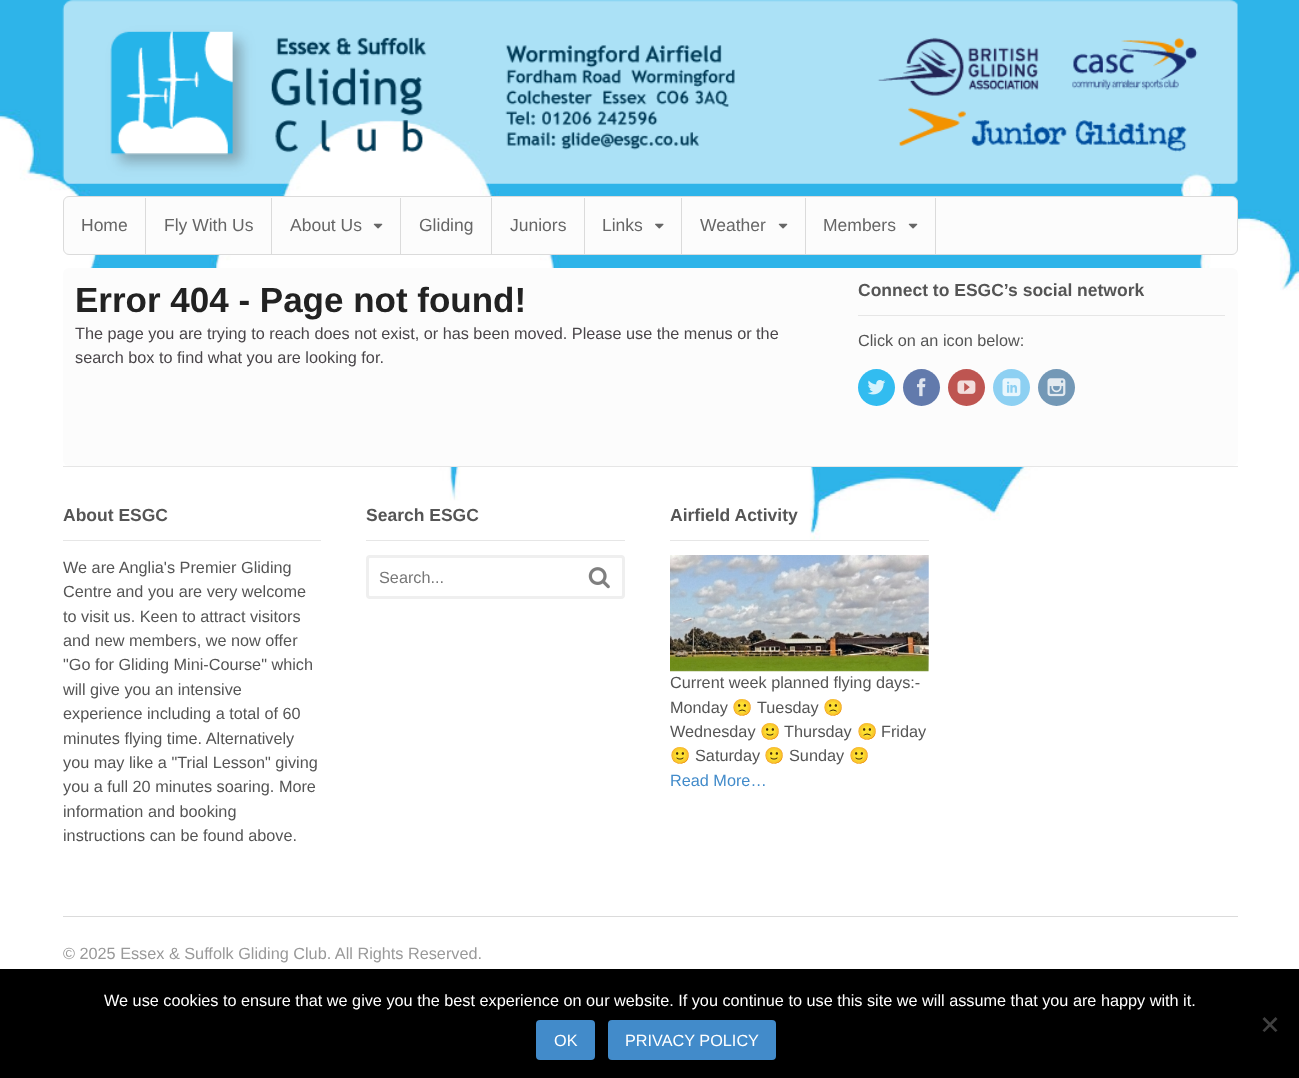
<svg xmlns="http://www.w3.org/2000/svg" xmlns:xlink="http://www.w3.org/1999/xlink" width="1299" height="1078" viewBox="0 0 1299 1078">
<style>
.cls-1{font:17.5px Liberation Sans;fill:#666666}
.cls-2{font:bold 35px Liberation Sans;fill:#222222}
.cls-3{font:16.25px Liberation Sans;fill:#4a464a}
.cls-4{font:bold 17.5px Liberation Sans;fill:#555555}
.cls-5{font:16.25px Liberation Sans;fill:#555555}
.cls-6{font:16.25px Liberation Sans;fill:#777777}
.cls-7{font:16.25px Noto Color Emoji;fill:#555555}
.cls-8{font:16.25px Liberation Sans;fill:#428bca}
.cls-9{font:16.25px Liberation Sans;fill:#999999}
.cls-10{font:16.25px Liberation Sans;fill:#ffffff}
</style>
<rect width="100%" height="100%" fill="#ffffff"/>
<image xlink:href="image0.png" x="0" y="0" width="1299" height="540"/>
<image xlink:href="image1.png" x="62" y="0" width="1176" height="184"/>
<rect fill="#fcfcfc" stroke="#dbdbdb" x="63.5" y="196.5" width="1174" height="58" rx="5.5"/>
<rect fill="#dbdbdb" x="145" y="198" width="1" height="56"/>
<rect fill="#dbdbdb" x="271" y="198" width="1" height="56"/>
<rect fill="#dbdbdb" x="400" y="198" width="1" height="56"/>
<image xlink:href="image2.png" x="373" y="223" width="10" height="6"/>
<rect fill="#dbdbdb" x="491" y="198" width="1" height="56"/>
<rect fill="#dbdbdb" x="584" y="198" width="1" height="56"/>
<rect fill="#dbdbdb" x="681" y="198" width="1" height="56"/>
<image xlink:href="image3.png" x="655" y="223" width="9" height="6"/>
<rect fill="#dbdbdb" x="805" y="198" width="1" height="56"/>
<image xlink:href="image2.png" x="778" y="223" width="10" height="6"/>
<rect fill="#dbdbdb" x="935" y="198" width="1" height="56"/>
<image xlink:href="image2.png" x="908" y="223" width="10" height="6"/>
<rect fill="#fcfcfc" x="63" y="268" width="1175" height="198" rx="6"/>
<rect fill="#e6e6e6" x="858" y="315" width="367" height="1"/>
<circle fill="#32bcf0" cx="876.5" cy="387.5" r="18.5"/>
<image xlink:href="image4.png" x="867" y="380" width="19" height="15"/>
<circle fill="#627aac" cx="921.5" cy="387.5" r="18.5"/>
<image xlink:href="image5.png" x="917" y="378" width="9" height="19"/>
<circle fill="#be5551" cx="966.5" cy="387.5" r="18.5"/>
<image xlink:href="image6.png" x="957" y="380" width="19" height="14"/>
<circle fill="#8dd0f2" cx="1011.5" cy="387.5" r="18.5"/>
<image xlink:href="image7.png" x="1002" y="378" width="19" height="19"/>
<circle fill="#7398b6" cx="1056.5" cy="387.5" r="18.5"/>
<image xlink:href="image8.png" x="1047" y="378" width="19" height="19"/>
<rect fill="#e6e6e6" x="63" y="466" width="1175" height="1"/>
<rect fill="#e6e6e6" x="63" y="540" width="258" height="1"/>
<rect fill="#e6e6e6" x="366" y="540" width="259" height="1"/>
<rect fill="none" stroke="#efefef" stroke-width="3" x="367.5" y="556.5" width="256" height="41" rx="2.5"/>
<image xlink:href="image9.png" x="588" y="567" width="22" height="22"/>
<rect fill="#e6e6e6" x="670" y="540" width="259" height="1"/>
<image xlink:href="image10.png" x="670" y="555" width="259" height="117"/>
<rect fill="#dbdbdb" x="63" y="916" width="1175" height="1"/>
<rect fill="#000000" x="0" y="969" width="1299" height="109"/>
<path fill="#404040" d="M1275.5 1017L1277.5 1019L1264.5 1032L1262.5 1030.5Z"/>
<path fill="#404040" d="M1262.5 1019L1264.5 1017L1277.5 1030.5L1275.5 1032Z"/>
<rect fill="#428bca" x="536" y="1020" width="59" height="40" rx="4"/>
<rect fill="#428bca" x="608" y="1020" width="168" height="40" rx="4"/>
<text class="cls-1" x="81" y="231">Home</text>
<text class="cls-1" x="164" y="231">Fly With Us</text>
<text class="cls-1" x="290" y="231">About Us</text>
<text class="cls-1" x="419" y="231">Gliding</text>
<text class="cls-1" x="510" y="231">Juniors</text>
<text class="cls-1" x="602" y="231">Links</text>
<text class="cls-1" x="700" y="231">Weather</text>
<text class="cls-1" x="823" y="231">Members</text>
<text class="cls-2" x="75" y="312">Error 404 - Page not found!</text>
<text class="cls-3"><tspan x="75" y="339">The page you are trying to reach does not exist, or has been moved. Please use the menus or the</tspan><tspan x="75" y="363">search box to find what you are looking for.</tspan></text>
<text class="cls-4" x="858" y="296">Connect to ESGC’s social network</text>
<text class="cls-5" x="858" y="346">Click on an icon below:</text>
<text class="cls-4" x="63" y="521">About ESGC</text>
<text class="cls-5"><tspan x="63" y="573">We are Anglia's Premier Gliding</tspan><tspan x="63" y="597">Centre and you are very welcome</tspan><tspan x="63" y="622">to visit us. Keen to attract visitors</tspan><tspan x="63" y="646">and new members, we now offer</tspan><tspan x="63" y="670">"Go for Gliding Mini-Course" which</tspan><tspan x="63" y="695">will give you an intensive</tspan><tspan x="63" y="719">experience including a total of 60</tspan><tspan x="63" y="744">minutes flying time. Alternatively</tspan><tspan x="63" y="768">you may like a "Trial Lesson" giving</tspan><tspan x="63" y="792">you a full 20 minutes soaring. More</tspan><tspan x="63" y="817">information and booking</tspan><tspan x="63" y="841">instructions can be found above.</tspan></text>
<text class="cls-4" x="366" y="521">Search ESGC</text>
<text class="cls-6" x="379" y="583">Search...</text>
<text class="cls-4" x="670" y="521">Airfield Activity</text>
<text class="cls-5"><tspan x="670" y="688">Current week planned flying days:-</tspan><tspan x="670" y="713">Monday</tspan></text>
<text class="cls-7" x="732" y="713">🙁</text>
<text class="cls-5" x="757" y="713">Tuesday</text>
<text class="cls-7" x="823" y="713">🙁</text>
<text class="cls-5" x="670" y="737">Wednesday</text>
<text class="cls-7" x="760" y="737">🙂</text>
<text class="cls-5" x="784" y="737">Thursday</text>
<text class="cls-7" x="857" y="737">🙁</text>
<text class="cls-5" x="881" y="737">Friday</text>
<text class="cls-7" x="670" y="761">🙂</text>
<text class="cls-5" x="695" y="761">Saturday</text>
<text class="cls-7" x="764" y="761">🙂</text>
<text class="cls-5" x="789" y="761">Sunday</text>
<text class="cls-7" x="849" y="761">🙂</text>
<text class="cls-8" x="670" y="786">Read More…</text>
<text class="cls-9" x="63" y="959">© 2025 Essex &amp; Suffolk Gliding Club. All Rights Reserved.</text>
<text class="cls-10" x="104" y="1006">We use cookies to ensure that we give you the best experience on our website. If you continue to use this site we will assume that you are happy with it.</text>
<text class="cls-10" x="554" y="1046">OK</text>
<text class="cls-10" x="625" y="1046">PRIVACY POLICY</text>
</svg>
